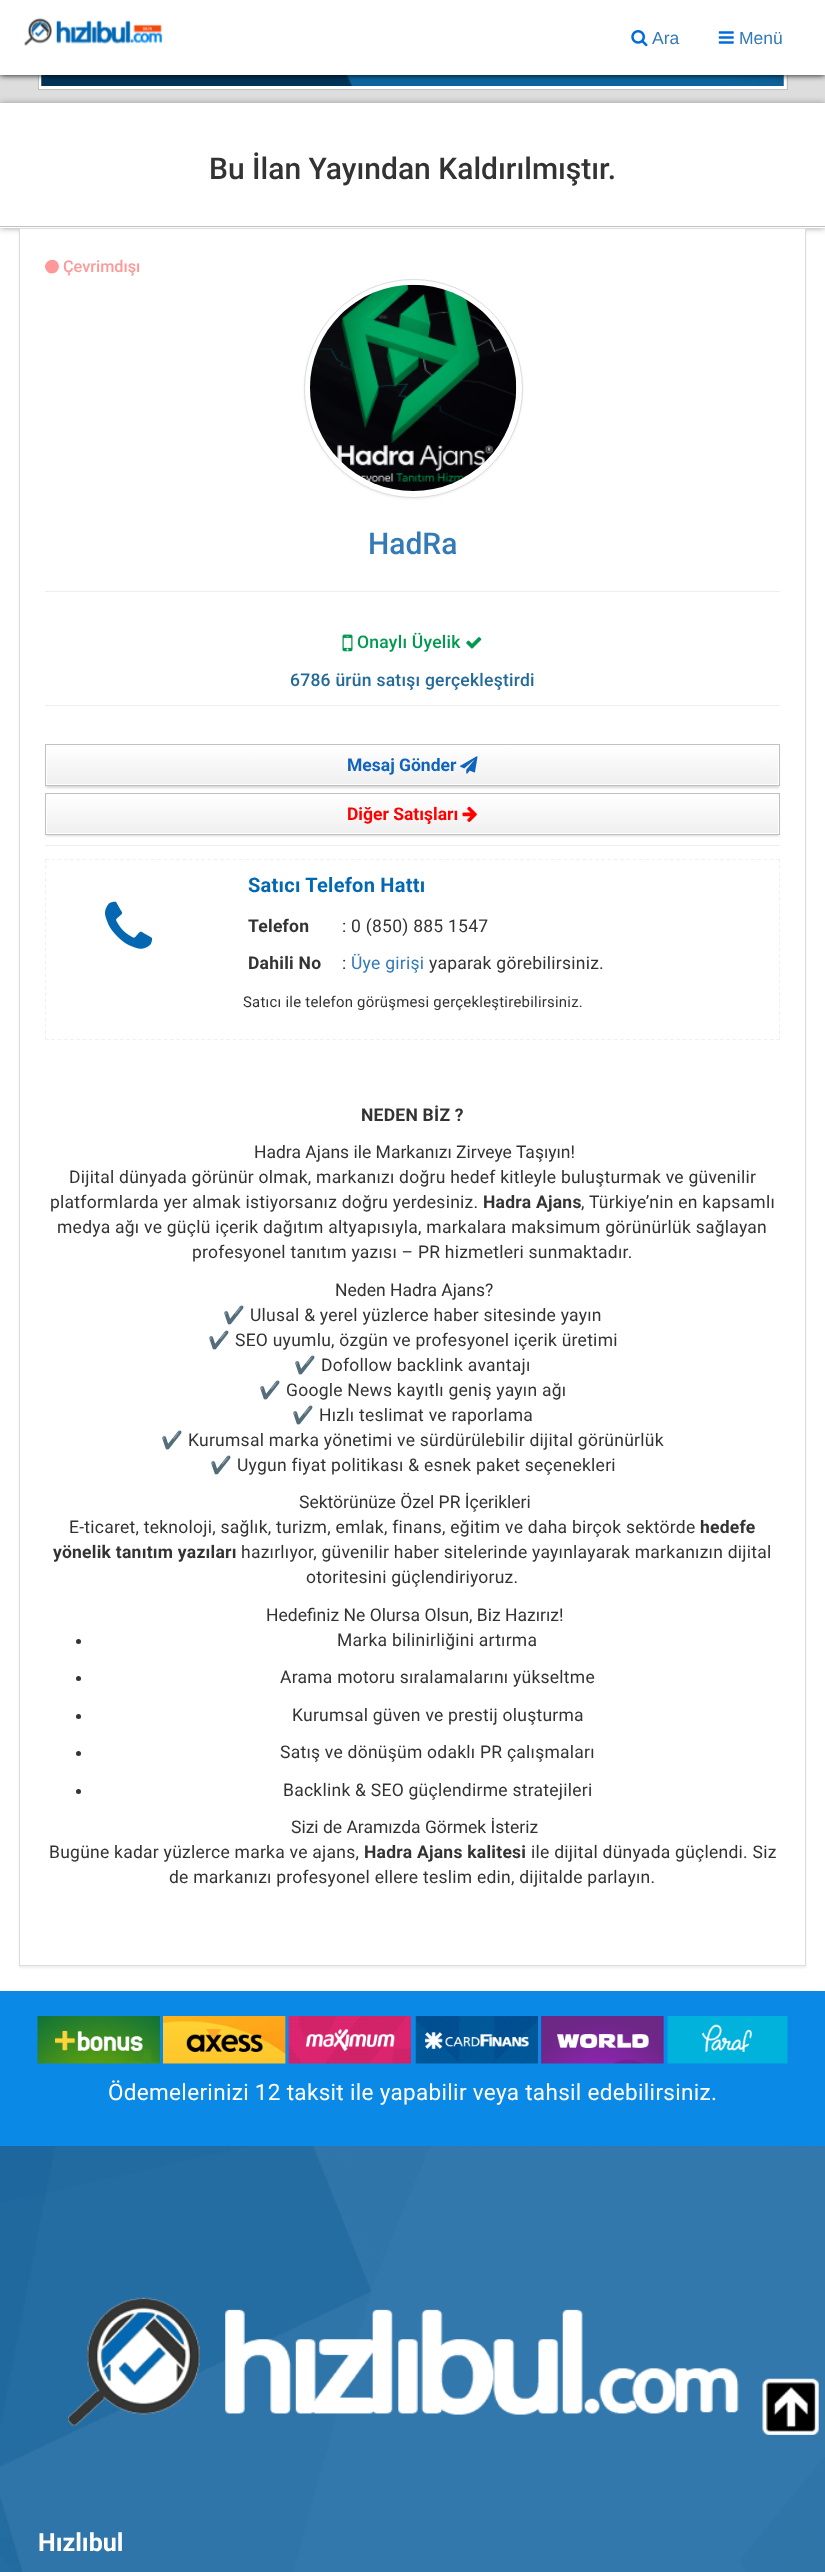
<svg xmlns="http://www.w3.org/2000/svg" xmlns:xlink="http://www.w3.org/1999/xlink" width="825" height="2572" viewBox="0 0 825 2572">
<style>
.cls-1{font:17.5px Liberation Sans;fill:#337ab7}
.cls-2{font:500 30px Roboto;fill:#333333}
.cls-3{font:500 16.25px Roboto;fill:#ff9999}
.cls-4{font:500 30px Roboto;fill:#337ab7}
.cls-5{font:500 17.5px Roboto;letter-spacing:0.25px;fill:#009950}
.cls-6{font:500 17.5px Roboto;letter-spacing:0.25px;fill:#236a99}
.cls-7{font:bold 17.5px Roboto;fill:#1064bc}
.cls-8{font:bold 17.5px Roboto;fill:#ff0000}
.cls-9{font:bold 20px Roboto;letter-spacing:0.25px;fill:#0367b1}
.cls-10{font:bold 17.5px Roboto;letter-spacing:0.25px;fill:#333333}
.cls-11{font:17.5px Roboto;letter-spacing:0.25px;fill:#333333}
.cls-12{font:17.5px Roboto;letter-spacing:0.25px;fill:#337ab7}
.cls-13{font:14.9px Roboto;letter-spacing:0.25px;fill:#333333}
.cls-14{font:17.5px Roboto;fill:#333333}
.cls-15{font:17.5px Noto Color Emoji;letter-spacing:0.25px;fill:#333333}
.cls-16{font:22.5px Roboto;letter-spacing:0.32px;fill:#ffffff}
.cls-17{font:bold 25px Roboto;fill:#ffffff}
</style>
<defs>
<linearGradient id="g1" gradientUnits="userSpaceOnUse" x1="413" y1="745" x2="413" y2="785"><stop offset="0" stop-color="#ffffff"/><stop offset="1" stop-color="#efefef"/></linearGradient>
<linearGradient id="g2" gradientUnits="userSpaceOnUse" x1="413" y1="794" x2="413" y2="834"><stop offset="0" stop-color="#ffffff"/><stop offset="1" stop-color="#efefef"/></linearGradient>
</defs>
<rect width="100%" height="100%" fill="#ffffff"/>
<rect fill="#dddddd" x="0" y="75" width="825" height="28"/>
<rect fill="#f1f1f1" x="786" y="75" width="1" height="14"/>
<rect fill="none" stroke="#c0c0c0" x="38.5" y="-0.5" width="749" height="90"/>
<rect fill="none" stroke="#ffffff" stroke-width="3" x="40.5" y="-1.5" width="744" height="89"/>
<image xlink:href="image0.png" x="41" y="75" width="743" height="11"/>
<rect fill="#000000" filter="blur(3px)" x="0" y="0" width="825" height="75"/>
<rect fill="#ffffff" x="0" y="0" width="825" height="75"/>
<image xlink:href="image1.png" x="24" y="18" width="139" height="28"/>
<image xlink:href="image2.png" x="631" y="30" width="17" height="17"/>
<image xlink:href="image3.png" x="718" y="31" width="16" height="13"/>
<rect fill="#999999" filter="blur(3px)" x="0" y="103" width="825" height="125"/>
<rect fill="#ffffff" x="0" y="103" width="825" height="125"/>
<rect fill="#c0c0c0" x="0" y="226" width="825" height="1"/>
<rect fill="#000000" fill-opacity="0.07" filter="blur(1px)" x="19" y="229" width="787" height="1739"/>
<rect fill="#ffffff" stroke="#dddddd" x="19.5" y="228.5" width="786" height="1737"/>
<path fill="#ff9999" d="M58 263C62.5 271 50.5 278 46 270C41.5 262.5 53.5 255.5 58 263Z"/>
<rect fill="#000000" fill-opacity="0.07" filter="blur(1px)" x="304" y="280" width="219" height="219" rx="109.5"/>
<circle fill="#ffffff" stroke="#dddddd" cx="413.5" cy="388.5" r="109"/>
<image xlink:href="image4.png" x="310" y="284" width="207" height="207"/>
<rect fill="#eeeeee" x="45" y="591" width="735" height="1"/>
<image xlink:href="image5.png" x="342" y="634" width="11" height="18"/>
<image xlink:href="image6.png" x="466" y="637" width="16" height="12"/>
<rect fill="#eeeeee" x="45" y="705" width="735" height="1"/>
<rect fill="#000000" fill-opacity="0.15" filter="blur(1px)" x="46" y="748" width="733" height="40"/>
<rect fill="url(#g1)" x="47" y="747" width="731" height="37"/>
<rect fill="none" stroke="#ffffff" x="46.5" y="745.5" width="732" height="39"/>
<rect fill="none" stroke="#c0c0c0" x="45.5" y="744.5" width="734" height="41"/>
<image xlink:href="image7.png" x="460" y="756" width="18" height="18"/>
<rect fill="#000000" fill-opacity="0.15" filter="blur(1px)" x="46" y="796" width="733" height="40"/>
<rect fill="url(#g2)" x="47" y="795" width="731" height="38"/>
<rect fill="none" stroke="#ffffff" x="46.5" y="794.5" width="732" height="39"/>
<rect fill="none" stroke="#c0c0c0" x="45.5" y="793.5" width="734" height="41"/>
<image xlink:href="image8.png" x="462" y="806" width="15" height="16"/>
<rect fill="#eeeeee" x="45" y="845" width="735" height="1"/>
<path fill="none" stroke="#f1f1f1" stroke-width="1.2" stroke-dasharray="3.75 2.5" d="M45 859.5H780"/>
<path fill="none" stroke="#f1f1f1" stroke-width="1.2" stroke-dasharray="3.75 2.59" d="M779.5 859V1040"/>
<path fill="none" stroke="#f1f1f1" stroke-width="1.2" stroke-dasharray="3.75 2.5" d="M45 1039.5H780"/>
<path fill="none" stroke="#f1f1f1" stroke-width="1.2" stroke-dasharray="3.75 2.59" d="M45.5 859V1040"/>
<image xlink:href="image9.png" x="105" y="901" width="48" height="48"/>
<circle fill="#333333" cx="78.5" cy="1641.5" r="2.5"/>
<circle fill="#333333" cx="78.5" cy="1678.5" r="2.5"/>
<circle fill="#333333" cx="78.5" cy="1716.5" r="2.5"/>
<circle fill="#333333" cx="78.5" cy="1753.5" r="2.5"/>
<circle fill="#333333" cx="78.5" cy="1791.5" r="2.5"/>
<rect fill="#0a89e7" x="0" y="1991" width="825" height="155"/>
<image xlink:href="image10.png" x="37" y="2016" width="751" height="48"/>
<rect fill="#0b609f" x="0" y="2146" width="825" height="426"/>
<image xlink:href="image12.png" x="0" y="2146" width="825" height="426"/>
<image xlink:href="image11.png" x="762" y="2378" width="57" height="57"/>
<image xlink:href="image13.png" x="67" y="2297" width="672" height="129"/>
<text class="cls-1" x="652" y="44">Ara</text>
<text class="cls-1" x="739" y="44">Menü</text>
<text class="cls-2" x="209" y="179">Bu İlan Yayından Kaldırılmıştır.</text>
<text class="cls-3" x="63" y="272">Çevrimdışı</text>
<text class="cls-4" x="368" y="554">HadRa</text>
<text class="cls-5" x="357" y="648">Onaylı Üyelik</text>
<text class="cls-6" x="290" y="686">6786 ürün satışı gerçekleştirdi</text>
<text class="cls-7" x="347" y="771">Mesaj Gönder</text>
<text class="cls-8" x="347" y="820">Diğer Satışları</text>
<text class="cls-9" x="248" y="892">Satıcı Telefon Hattı</text>
<text class="cls-10" x="248" y="932">Telefon</text>
<text class="cls-11" x="342" y="932">: 0 (850) 885 1547</text>
<text class="cls-10" x="248" y="969">Dahili No</text>
<text class="cls-11" x="342" y="969">:</text>
<text class="cls-12" x="351" y="969">Üye girişi</text>
<text class="cls-11" x="429" y="969">yaparak görebilirsiniz.</text>
<text class="cls-13" x="243" y="1007">Satıcı ile telefon görüşmesi gerçekleştirebilirsiniz.</text>
<text class="cls-10" x="361" y="1121">NEDEN BİZ ?</text>
<text class="cls-14" x="254" y="1158">Hadra Ajans ile Markanızı Zirveye Taşıyın!</text>
<text class="cls-11" x="69" y="1183">Dijital dünyada görünür olmak, markanızı doğru hedef kitleyle buluşturmak ve güvenilir</text>
<text class="cls-11" x="50" y="1208">platformlarda yer almak istiyorsanız doğru yerdesiniz.</text>
<text class="cls-10" x="483" y="1208">Hadra Ajans</text>
<text class="cls-11" x="581" y="1208">, Türkiye’nin en kapsamlı</text>
<text class="cls-11" x="57" y="1233">medya ağı ve güçlü içerik dağıtım altyapısıyla, markalara maksimum görünürlük sağlayan</text>
<text class="cls-11" x="192" y="1258">profesyonel tanıtım yazısı – PR hizmetleri sunmaktadır.</text>
<text class="cls-14" x="335" y="1296">Neden Hadra Ajans?</text>
<text class="cls-15" x="223" y="1321">✔️</text>
<text class="cls-11" x="250" y="1321">Ulusal &amp; yerel yüzlerce haber sitesinde yayın</text>
<text class="cls-15" x="208" y="1346">✔️</text>
<text class="cls-11" x="235" y="1346">SEO uyumlu, özgün ve profesyonel içerik üretimi</text>
<text class="cls-15" x="294" y="1371">✔️</text>
<text class="cls-11" x="321" y="1371">Dofollow backlink avantajı</text>
<text class="cls-15" x="259" y="1396">✔️</text>
<text class="cls-11" x="286" y="1396">Google News kayıtlı geniş yayın ağı</text>
<text class="cls-15" x="292" y="1421">✔️</text>
<text class="cls-11" x="319" y="1421">Hızlı teslimat ve raporlama</text>
<text class="cls-15" x="161" y="1446">✔️</text>
<text class="cls-11" x="188" y="1446">Kurumsal marka yönetimi ve sürdürülebilir dijital görünürlük</text>
<text class="cls-15" x="210" y="1471">✔️</text>
<text class="cls-11" x="237" y="1471">Uygun fiyat politikası &amp; esnek paket seçenekleri</text>
<text class="cls-14" x="299" y="1508">Sektörünüze Özel PR İçerikleri</text>
<text class="cls-11" x="69" y="1533">E-ticaret, teknoloji, sağlık, turizm, emlak, finans, eğitim ve daha birçok sektörde</text>
<text class="cls-10" x="700" y="1533">hedefe</text>
<text class="cls-10" x="53" y="1558">yönelik tanıtım yazıları</text>
<text class="cls-11" x="241" y="1558">hazırlıyor, güvenilir haber sitelerinde yayınlayarak markanızın dijital</text>
<text class="cls-11" x="306" y="1583">otoritesini güçlendiriyoruz.</text>
<text class="cls-14" x="266" y="1621">Hedefiniz Ne Olursa Olsun, Biz Hazırız!</text>
<text class="cls-11" x="337" y="1646">Marka bilinirliğini artırma</text>
<text class="cls-11" x="280" y="1683">Arama motoru sıralamalarını yükseltme</text>
<text class="cls-11" x="292" y="1721">Kurumsal güven ve prestij oluşturma</text>
<text class="cls-11" x="280" y="1758">Satış ve dönüşüm odaklı PR çalışmaları</text>
<text class="cls-11" x="283" y="1796">Backlink &amp; SEO güçlendirme stratejileri</text>
<text class="cls-14" x="291" y="1833">Sizi de Aramızda Görmek İsteriz</text>
<text class="cls-11" x="49" y="1858">Bugüne kadar yüzlerce marka ve ajans,</text>
<text class="cls-10" x="364" y="1858">Hadra Ajans kalitesi</text>
<text class="cls-11" x="531" y="1858">ile dijital dünyada güçlendi. Siz</text>
<text class="cls-11" x="169" y="1883">de markanızı profesyonel ellere teslim edin, dijitalde parlayın.</text>
<text class="cls-16" x="108" y="2100">Ödemelerinizi 12 taksit ile yapabilir veya tahsil edebilirsiniz.</text>
<text class="cls-17" x="38" y="2551">Hızlıbul</text>
</svg>
